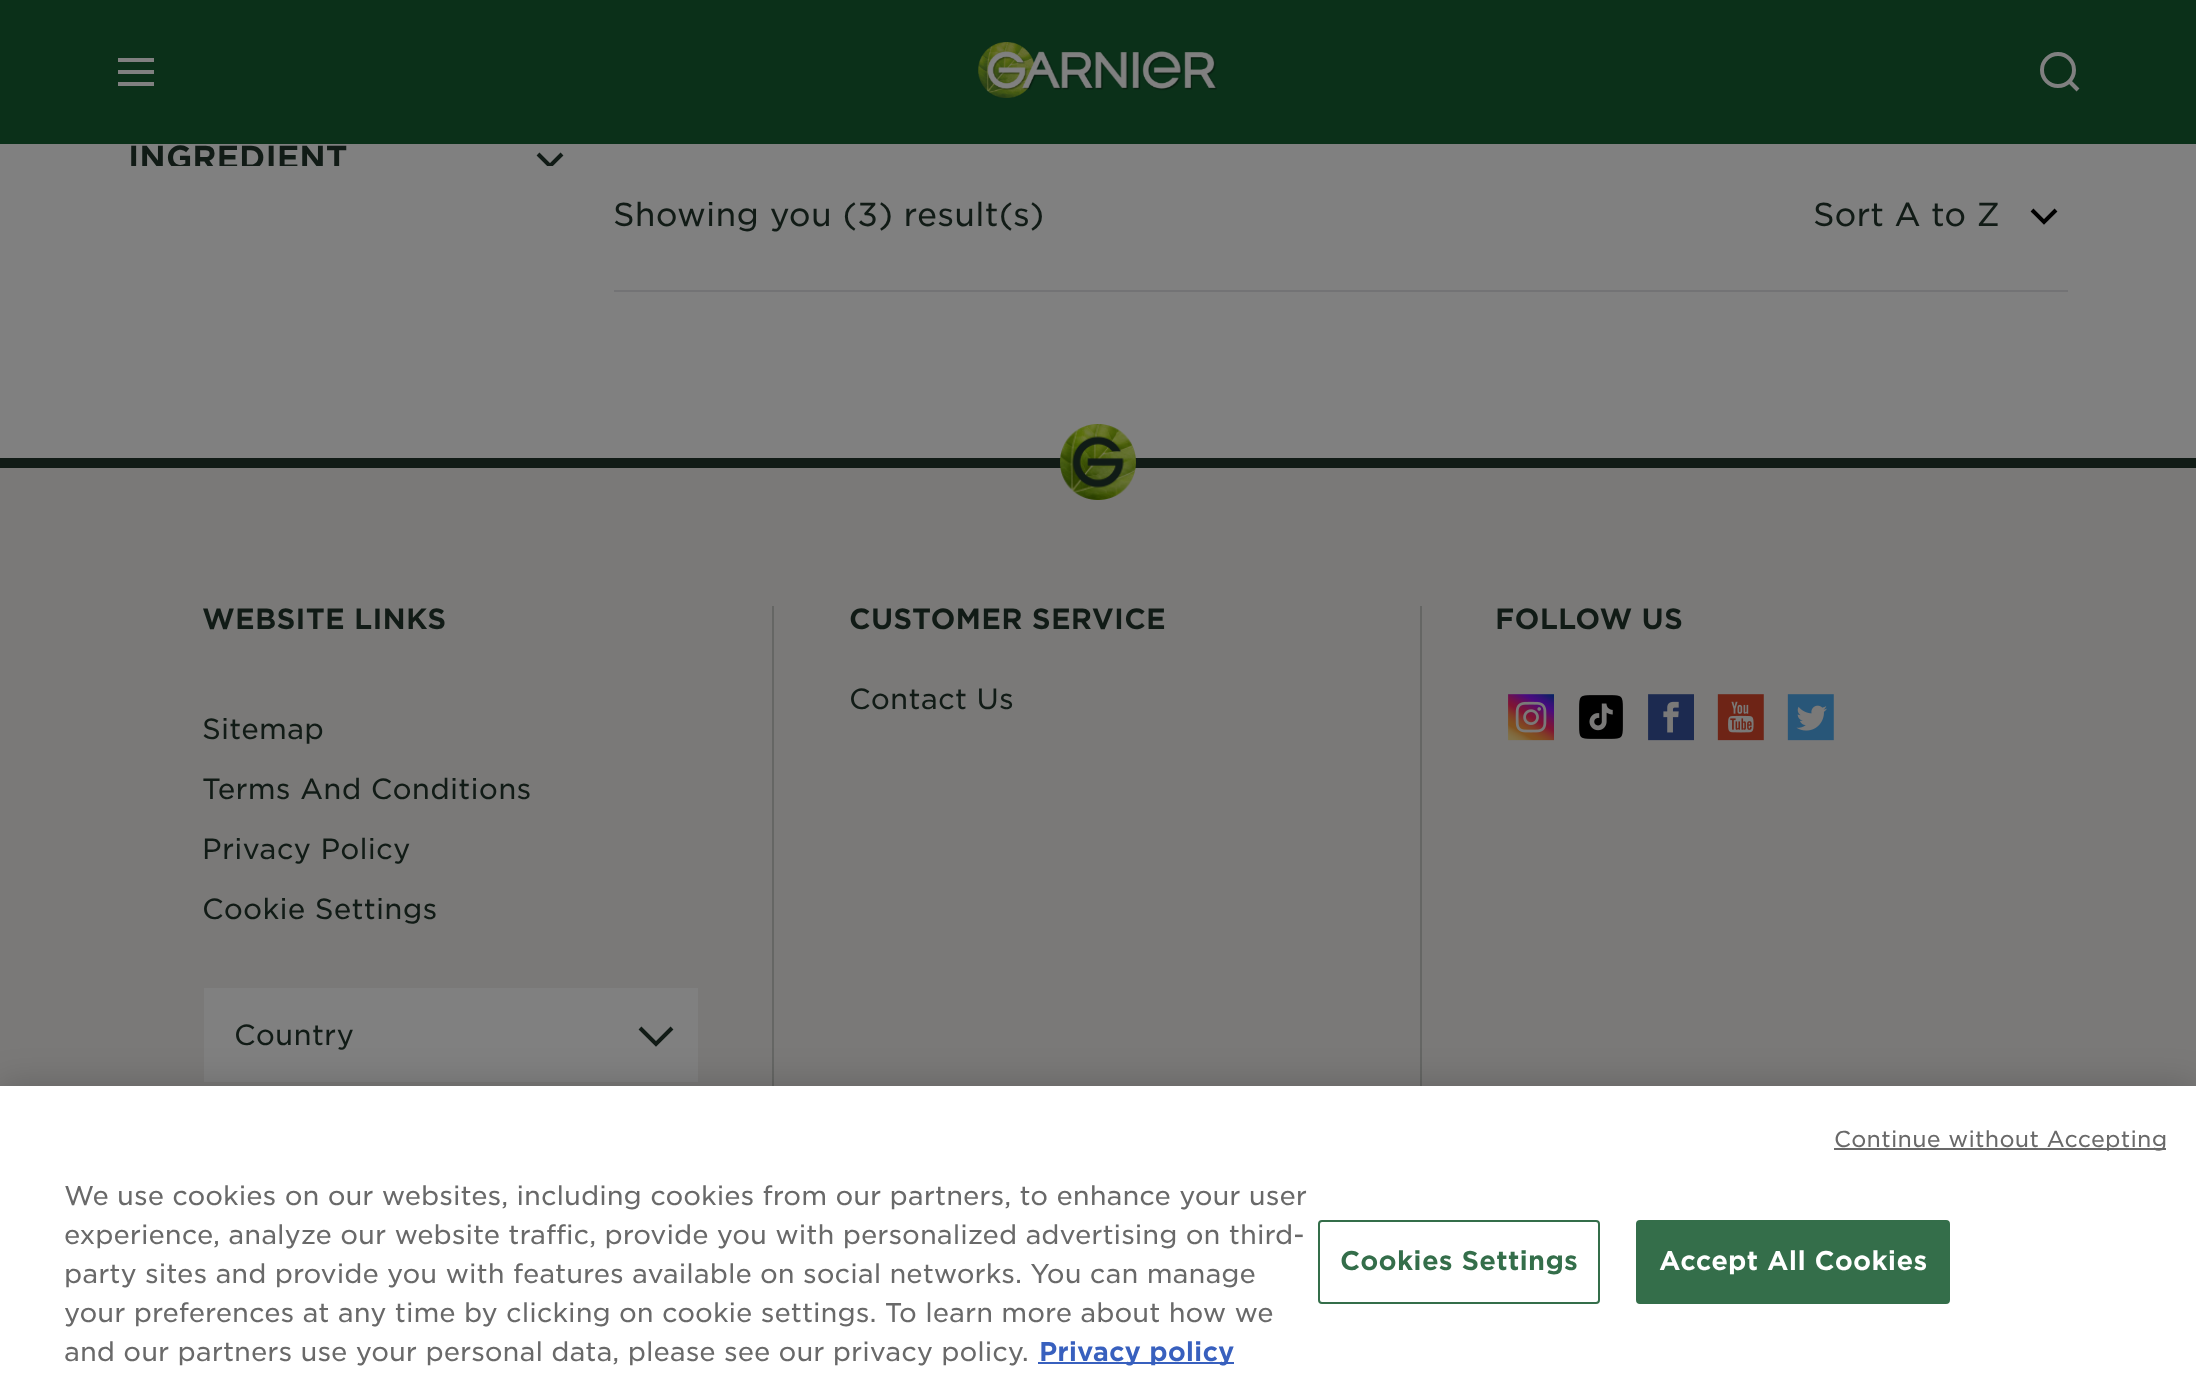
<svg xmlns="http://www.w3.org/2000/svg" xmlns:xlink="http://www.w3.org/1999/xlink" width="2196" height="1392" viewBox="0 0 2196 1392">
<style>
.cls-1{font:32px 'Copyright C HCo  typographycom';fill:#111b16}
.cls-2{font:300 32px 'Copyright C HCo  typographycom';letter-spacing:0.2px;fill:#111b16}
.cls-3{font:300 32px 'Copyright C HCo  typographycom';fill:#111b16}
.cls-4{font:28px 'Copyright C HCo  typographycom';letter-spacing:0.2px;fill:#111b16}
.cls-5{font:300 28px 'Copyright C HCo  typographycom';letter-spacing:0.2px;fill:#111b16}
.cls-6{font:300 22.1px 'Copyright C HCo  typographycom';letter-spacing:0.25px;fill:#696969}
.cls-7{font:300 26px 'Copyright C HCo  typographycom';fill:#696969}
.cls-8{font:26px 'Copyright C HCo  typographycom';fill:#3860be}
.cls-9{font:26px 'Copyright C HCo  typographycom';letter-spacing:0.25px;fill:#346e4a}
.cls-10{font:26px 'Copyright C HCo  typographycom';letter-spacing:0.25px;fill:#ffffff}
</style>
<defs>
<clipPath id="clip1"><rect x="526" y="136" width="48" height="30"/></clipPath>
<clipPath id="clip2"><rect x="128" y="0" width="486" height="166"/></clipPath>
</defs>
<rect width="100%" height="100%" fill="#808080"/>
<rect fill="#0b3019" x="0" y="0" width="2196" height="144"/>
<rect fill="#808080" x="118" y="58" width="36" height="4"/>
<rect fill="#808080" x="118" y="70" width="36" height="4"/>
<rect fill="#808080" x="118" y="82" width="36" height="4"/>
<image xlink:href="image0.png" x="978" y="42" width="239" height="56"/>
<circle fill="none" stroke="#808080" stroke-width="4" cx="2058" cy="70" r="16"/>
<path fill="none" stroke="#808080" stroke-width="4" stroke-linejoin="round" d="M2069 81L2078 90"/>
<g clip-path="url(#clip1)">
<path fill="none" stroke="#111b16" stroke-width="4" d="M538 154L550 166L562 154"/>
</g>
<rect fill="#737375" x="614" y="290" width="1454" height="2"/>
<path fill="none" stroke="#000000" stroke-width="4" d="M2032 210L2044 222L2056 210"/>
<rect fill="#7a7978" x="0" y="468" width="2196" height="618"/>
<rect fill="#111b16" x="0" y="458" width="2196" height="10"/>
<image xlink:href="image1.png" x="1060" y="424" width="76" height="76"/>
<rect fill="#656664" x="772" y="606" width="2" height="480"/>
<rect fill="#808080" x="204" y="988" width="494" height="94"/>
<path fill="none" stroke="#111b16" stroke-width="4" d="M640 1028L656 1044L672 1028"/>
<rect fill="#656664" x="1420" y="606" width="2" height="480"/>
<image xlink:href="image2.png" x="1508" y="694" width="46" height="47"/>
<image xlink:href="image3.png" x="1579" y="695" width="44" height="44"/>
<image xlink:href="image4.png" x="1648" y="694" width="46" height="47"/>
<image xlink:href="image5.png" x="1717" y="694" width="47" height="47"/>
<image xlink:href="image6.png" x="1787" y="694" width="47" height="47"/>
<rect fill="#000000" fill-opacity="0.2" filter="blur(18px)" x="0" y="1086" width="2196" height="306"/>
<rect fill="#ffffff" x="0" y="1086" width="2196" height="306"/>
<rect fill="#696969" x="1834" y="1148" width="332" height="2"/>
<rect fill="#3860be" x="1038" y="1362" width="196" height="2"/>
<rect fill="none" stroke="#346e4a" stroke-width="2" x="1319" y="1221" width="280" height="82" rx="3"/>
<rect fill="#346e4a" stroke="#346e4a" stroke-width="2" x="1637" y="1221" width="312" height="82" rx="3"/>
<g clip-path="url(#clip2)">
<text class="cls-1" x="128" y="169">INGREDIENT</text>
</g>
<text class="cls-2" x="613" y="226">Showing you (3) result(s)</text>
<text class="cls-3" x="1813" y="226">Sort A to Z</text>
<text class="cls-4" x="202" y="629">WEBSITE LINKS</text>
<text class="cls-5" x="202" y="739">Sitemap</text>
<text class="cls-5" x="202" y="799">Terms And Conditions</text>
<text class="cls-5" x="202" y="859">Privacy Policy</text>
<text class="cls-5" x="202" y="919">Cookie Settings</text>
<text class="cls-5" x="234" y="1045">Country</text>
<text class="cls-4" x="849" y="629">CUSTOMER SERVICE</text>
<text class="cls-5" x="849" y="709">Contact Us</text>
<text class="cls-4" x="1495" y="629">FOLLOW US</text>
<text class="cls-6" x="1834" y="1147">Continue without Accepting</text>
<text class="cls-7"><tspan x="64" y="1205">We use cookies on our websites, including cookies from our partners, to enhance your user</tspan><tspan x="64" y="1244">experience, analyze our website traffic, provide you with personalized advertising on third-</tspan><tspan x="64" y="1283">party sites and provide you with features available on social networks. You can manage</tspan><tspan x="64" y="1322">your preferences at any time by clicking on cookie settings. To learn more about how we</tspan><tspan x="64" y="1361">and our partners use your personal data, please see our privacy policy.</tspan></text>
<text class="cls-8" x="1039" y="1361">Privacy policy</text>
<text class="cls-9" x="1340" y="1270">Cookies Settings</text>
<text class="cls-10" x="1659" y="1270">Accept All Cookies</text>
</svg>
